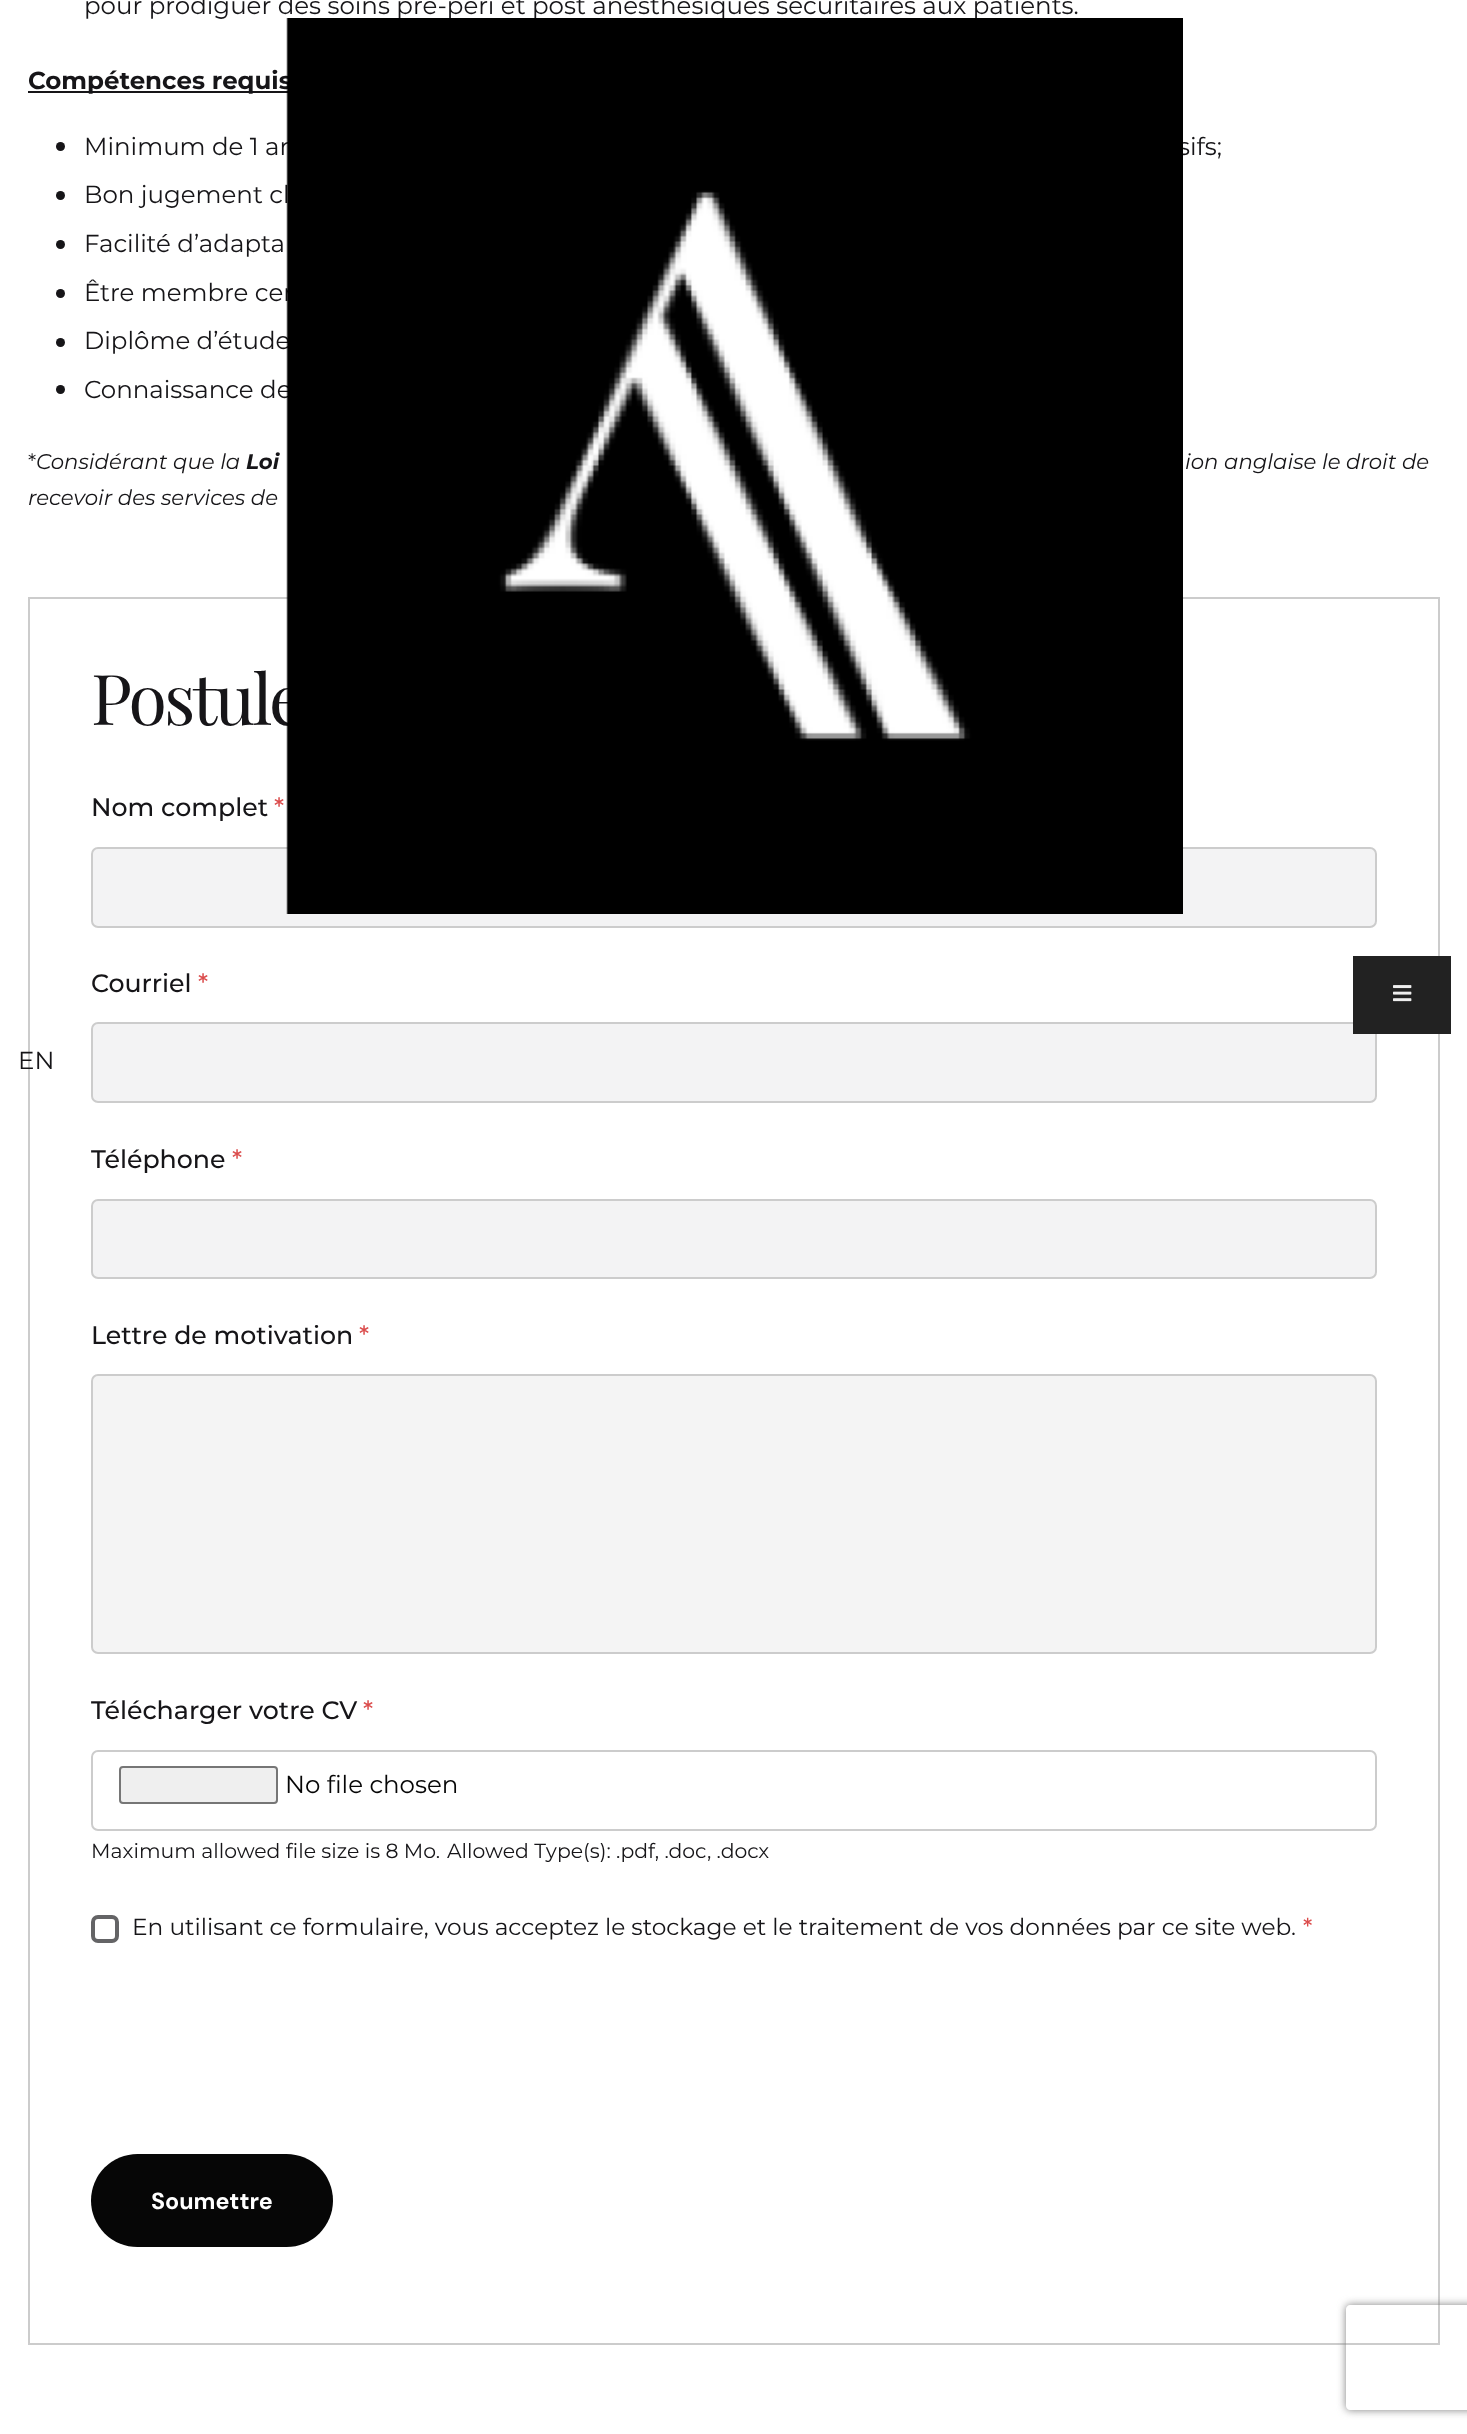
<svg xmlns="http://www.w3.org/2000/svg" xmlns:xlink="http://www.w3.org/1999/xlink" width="1467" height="2434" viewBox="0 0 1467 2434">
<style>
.cls-1{font:24.5px Montserrat;fill:#161518}
.cls-2{font:bold 24.5px Montserrat;fill:#161518}
.cls-3{font:21.25px Montserrat;fill:#161518}
.cls-4{font:italic 21.25px Montserrat;fill:#161518}
.cls-5{font:italic bold 21.25px Montserrat;fill:#161518}
.cls-6{font:70px Playfair Display;letter-spacing:-2.75px;fill:#161518}
.cls-7{font:500 25.25px Montserrat;fill:#161518}
.cls-8{font:500 25.25px Montserrat;fill:#db4c4c}
.cls-9{font:24.5px Montserrat;fill:#060606}
.cls-10{font:20.4px Montserrat;fill:#161518}
.cls-11{font:23.28px Montserrat;fill:#161518}
.cls-12{font:500 23.28px Montserrat;fill:#db4c4c}
.cls-13{font:bold 23.28px DM Sans;fill:#ffffff}
</style>
<defs>
<clipPath id="clip1"><path d="M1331 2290H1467V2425H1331ZM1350 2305H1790C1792 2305 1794 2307 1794 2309V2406C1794 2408 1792 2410 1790 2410H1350C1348 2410 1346 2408 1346 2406V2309C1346 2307 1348 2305 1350 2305Z" clip-rule="evenodd"/></clipPath>
</defs>
<rect width="100%" height="100%" fill="#ffffff"/>
<rect fill="#161518" x="28" y="91" width="260" height="2"/>
<circle fill="#161518" cx="60.5" cy="146.5" r="4.5"/>
<circle fill="#161518" cx="60.5" cy="195.5" r="4.5"/>
<circle fill="#161518" cx="60.5" cy="244.5" r="4.5"/>
<circle fill="#161518" cx="60.5" cy="293.5" r="4.5"/>
<circle fill="#161518" cx="60.5" cy="342.5" r="4.5"/>
<circle fill="#161518" cx="60.5" cy="389.5" r="4.5"/>
<rect fill="none" stroke="#cccccc" stroke-width="2" x="29" y="598" width="1410" height="1746"/>
<rect fill="#f3f3f4" stroke="#cccccc" stroke-width="2" x="92" y="848" width="1284" height="79" rx="6"/>
<rect fill="#f3f3f4" stroke="#cccccc" stroke-width="2" x="92" y="1023" width="1284" height="79" rx="6"/>
<rect fill="#f3f3f4" stroke="#cccccc" stroke-width="2" x="92" y="1200" width="1284" height="78" rx="6"/>
<rect fill="#f4f4f4" stroke="#cccccc" stroke-width="2" x="92" y="1375" width="1284" height="278" rx="6"/>
<rect fill="none" stroke="#cccccc" stroke-width="2" x="92" y="1751" width="1284" height="79" rx="6"/>
<rect fill="#efefef" stroke="#767676" stroke-width="2" x="120" y="1767" width="157" height="36" rx="3"/>
<rect fill="none" stroke="#646466" stroke-width="4" x="93" y="1917" width="24" height="24" rx="5"/>
<rect fill="#060606" x="91" y="2154" width="242" height="93" rx="46.5"/>
<rect fill="#222222" x="1353" y="956" width="98" height="78"/>
<image xlink:href="image1.png" x="1393" y="985" width="19" height="17"/>
<g clip-path="url(#clip1)">
<rect fill="#808080" filter="blur(4.5px)" x="1346" y="2305" width="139" height="105" rx="4"/>
</g>
<text class="cls-1" x="84" y="14">pour prodiguer des soins pré-péri et post anesthésiques sécuritaires aux patients.</text>
<text class="cls-2" x="28" y="89">Compétences requis</text>
<text class="cls-1" x="84" y="155">Minimum de 1 an</text>
<text class="cls-1" x="1178" y="155">sifs;</text>
<text class="cls-1" x="84" y="203">Bon jugement cl</text>
<text class="cls-1" x="84" y="252">Facilité d’adapta</text>
<text class="cls-1"><tspan x="84" y="301">Être membre cer</tspan><tspan x="84" y="349">Diplôme d’étude</tspan></text>
<text class="cls-1" x="84" y="398">Connaissance de</text>
<text class="cls-3" x="28" y="469">*</text>
<text class="cls-4" x="36" y="469">Considérant que la</text>
<text class="cls-5" x="246" y="469">Loi</text>
<text class="cls-4" x="1185" y="469">ion anglaise le droit de</text>
<text class="cls-4" x="28" y="505">recevoir des services de</text>
<text class="cls-6" x="91" y="725">Postule</text>
<text class="cls-7" x="91" y="816">Nom complet</text>
<text class="cls-8" x="274" y="816">*</text>
<text class="cls-7" x="91" y="992">Courriel</text>
<text class="cls-8" x="198" y="992">*</text>
<text class="cls-7" x="91" y="1168">Téléphone</text>
<text class="cls-8" x="232" y="1168">*</text>
<text class="cls-7" x="91" y="1344">Lettre de motivation</text>
<text class="cls-8" x="359" y="1344">*</text>
<text class="cls-7" x="91" y="1719">Télécharger votre CV</text>
<text class="cls-8" x="363" y="1719">*</text>
<text class="cls-9" x="285" y="1793">No file chosen</text>
<text class="cls-10" x="91" y="1858">Maximum allowed file size is 8 Mo.</text>
<text class="cls-10" x="447" y="1858">Allowed Type(s): .pdf, .doc, .docx</text>
<text class="cls-11" x="132" y="1935">En utilisant ce formulaire, vous acceptez le stockage et le traitement de vos données par ce site web.</text>
<text class="cls-12" x="1303" y="1935">*</text>
<text class="cls-13" x="151" y="2209">Soumettre</text>
<image xlink:href="image0.png" x="286" y="18" width="897" height="896"/>
<text class="cls-1" x="18" y="1069">EN</text>
</svg>
